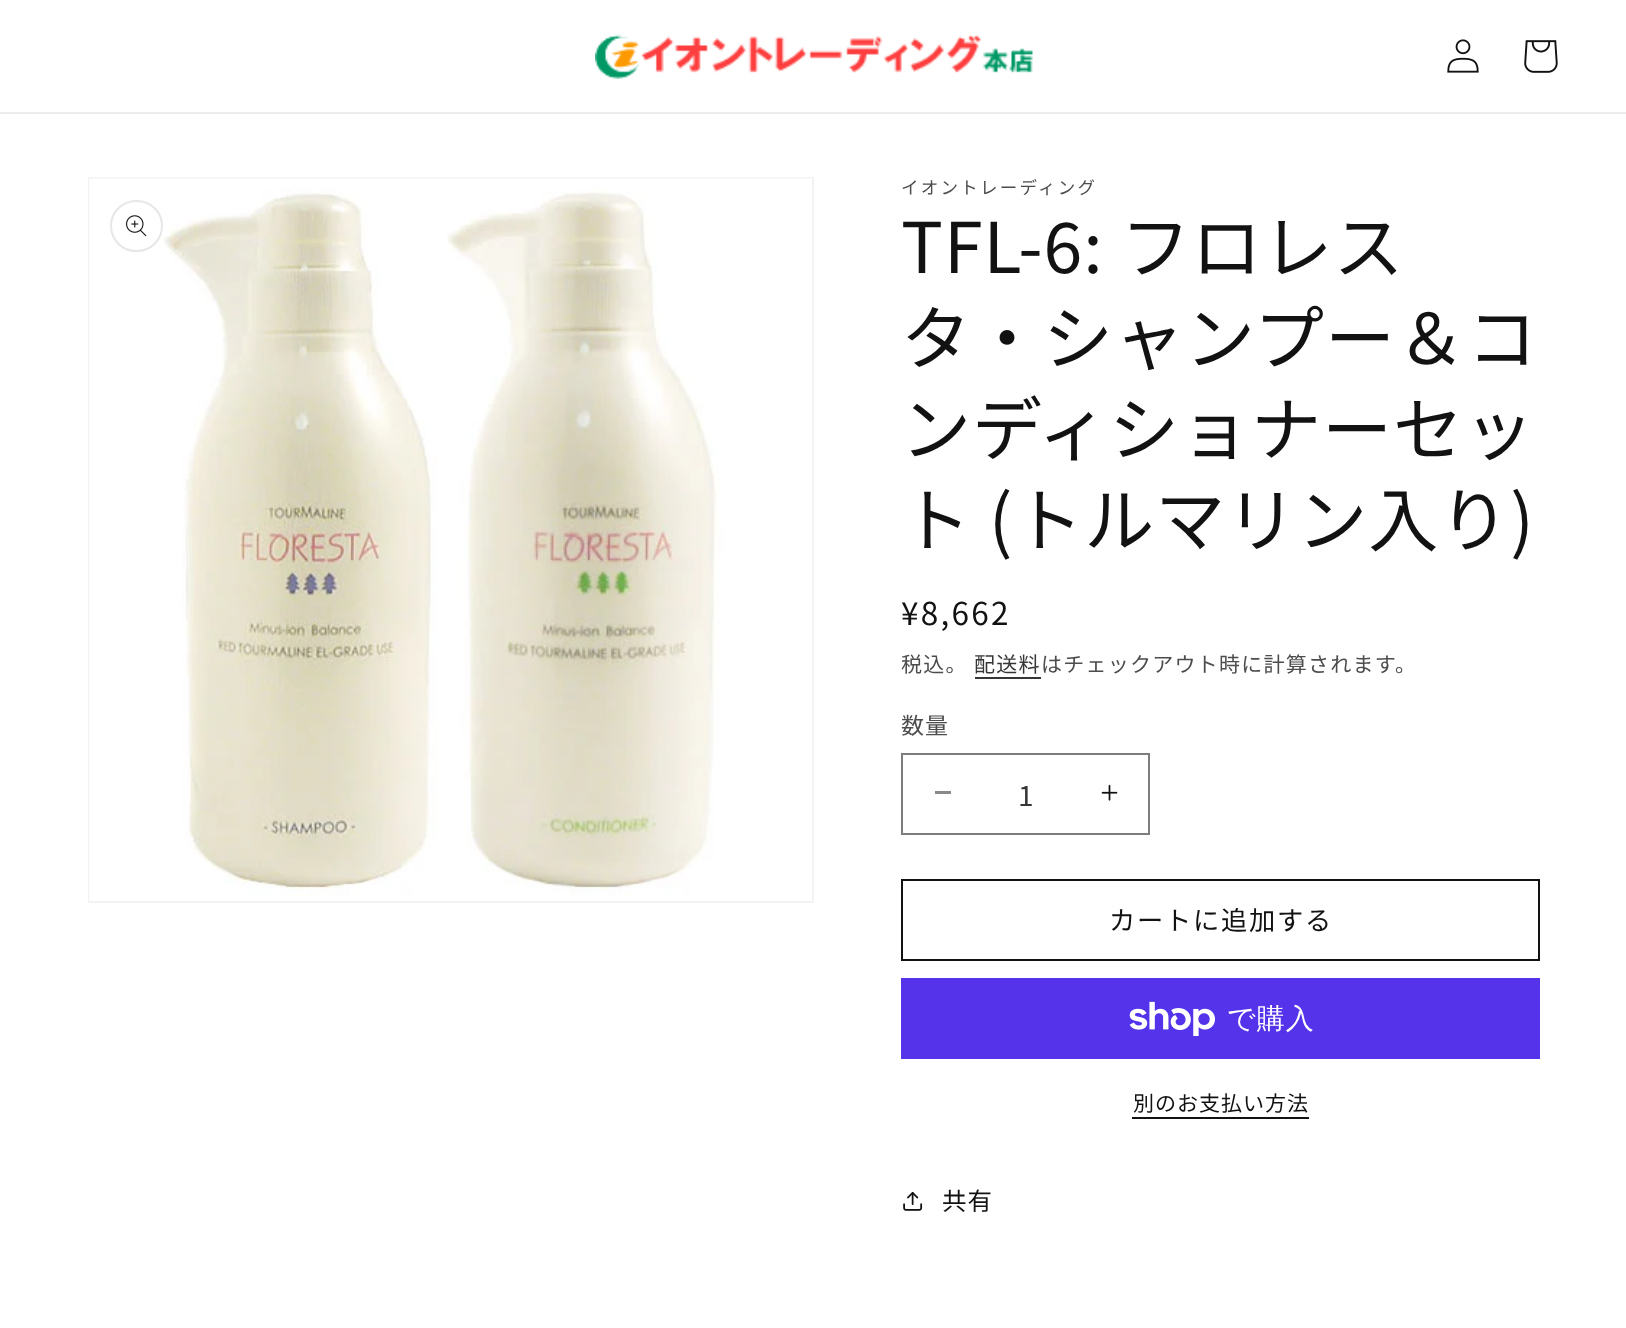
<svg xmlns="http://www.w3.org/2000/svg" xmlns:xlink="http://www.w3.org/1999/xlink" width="1626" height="1328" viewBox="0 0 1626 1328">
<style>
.cls-1{font:17.5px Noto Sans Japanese;letter-spacing:2.25px;fill:#4d4d4d}
.cls-2{font:70px Noto Sans Japanese;letter-spacing:1px;fill:#121212}
.cls-3{font:31.5px Noto Sans Japanese;letter-spacing:2.25px;fill:#121212}
.cls-4{font:21px Noto Sans Japanese;letter-spacing:1.25px;fill:#4d4d4d}
.cls-5{font:21px Noto Sans Japanese;letter-spacing:1.25px;fill:#363636}
.cls-6{font:23px Noto Sans Japanese;letter-spacing:1px;fill:#4d4d4d}
.cls-7{font:28px Noto Sans Japanese;fill:#363636}
.cls-8{font:26.25px Noto Sans Japanese;letter-spacing:1.75px;fill:#121212}
.cls-9{font:500 28px WenQuanYi Zen Hei;letter-spacing:1px;fill:#ffffff}
.cls-10{font:21px Noto Sans Japanese;letter-spacing:1px;fill:#121212}
.cls-11{font:24.5px Noto Sans Japanese;letter-spacing:1px;fill:#121212}
</style>
<rect width="100%" height="100%" fill="#ffffff"/>
<rect fill="#ececec" x="0" y="112" width="1626" height="2"/>
<image xlink:href="image0.png" x="595" y="34" width="438" height="45"/>
<image xlink:href="image1.png" x="1447" y="39" width="32" height="34"/>
<image xlink:href="image2.png" x="1524" y="40" width="34" height="33"/>
<rect fill="none" stroke="#f3f3f3" stroke-width="2" x="89" y="178" width="724" height="724"/>
<image xlink:href="image3.png" x="89" y="178" width="723" height="723"/>
<rect fill="none" stroke="#e7e7e7" stroke-width="2" x="111" y="201" width="51" height="50" rx="25"/>
<image xlink:href="image4.png" x="126" y="215" width="21" height="22"/>
<rect fill="#363636" x="975" y="677" width="66" height="2"/>
<rect fill="#898989" x="935" y="791" width="16" height="3"/>
<image xlink:href="image5.png" x="1101" y="784" width="17" height="17"/>
<rect fill="none" stroke="#7d7d7d" stroke-width="2" x="902" y="754" width="247" height="80"/>
<rect fill="none" stroke="#121212" stroke-width="2" x="902" y="880" width="637" height="80"/>
<rect fill="#5433eb" x="901" y="978" width="639" height="81"/>
<image xlink:href="image6.png" x="1129" y="1001" width="86" height="35"/>
<rect fill="#121212" x="1132" y="1117" width="177" height="2"/>
<image xlink:href="image7.png" x="903" y="1192" width="20" height="19"/>
<text class="cls-1" x="901" y="194">イオントレーディング</text>
<text class="cls-2"><tspan x="901" y="273">TFL-6: フロレス</tspan><tspan x="901" y="364">タ・シャンプー＆コ</tspan><tspan x="901" y="455">ンディショナーセッ</tspan><tspan x="901" y="546">ト (トルマリン入り)</tspan></text>
<text class="cls-3" x="901" y="625">¥8,662</text>
<text class="cls-4" x="901" y="672">税込。</text>
<text class="cls-5" x="974" y="672">配送料</text>
<text class="cls-4" x="1041" y="672">はチェックアウト時に計算されます。</text>
<text class="cls-6" x="901" y="734">数量</text>
<text class="cls-7" x="1018" y="806">1</text>
<text class="cls-8" x="1109" y="930">カートに追加する</text>
<text class="cls-9" x="1227" y="1028">で購入</text>
<text class="cls-10" x="1133" y="1111">別のお支払い方法</text>
<text class="cls-11" x="942" y="1210">共有</text>
</svg>
